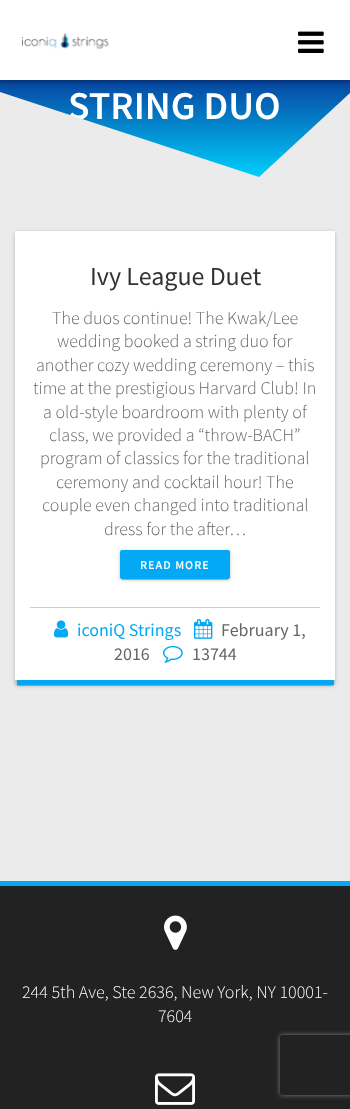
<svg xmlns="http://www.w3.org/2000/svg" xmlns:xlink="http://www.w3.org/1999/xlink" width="350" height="1109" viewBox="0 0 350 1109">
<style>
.cls-1{font:600 39.5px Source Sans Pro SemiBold;fill:#ffffff}
.cls-2{font:26px Source Sans Pro;fill:#333333}
.cls-3{font:300 18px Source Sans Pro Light;fill:#666666}
.cls-4{font:600 12px Source Sans Pro SemiBold;letter-spacing:1px;fill:#ffffff}
.cls-5{font:18px Source Sans Pro;fill:#03a9f4}
.cls-6{font:18px Source Sans Pro;fill:#666666}
.cls-7{font:300 18px Source Sans Pro Light;fill:#ffffff}
</style>
<defs>
<linearGradient id="g1" gradientUnits="userSpaceOnUse" x1="175" y1="-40" x2="175" y2="181"><stop offset="0" stop-color="#020024"/><stop offset="0.35" stop-color="#090979"/><stop offset="1" stop-color="#00d4ff"/></linearGradient>
<clipPath id="clip1"><path d="M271 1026H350V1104H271ZM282 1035H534C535 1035 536 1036 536 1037V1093C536 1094 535 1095 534 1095H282C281 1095 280 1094 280 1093V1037C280 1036 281 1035 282 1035Z" clip-rule="evenodd"/></clipPath>
</defs>
<rect width="100%" height="100%" fill="#ebebeb"/>
<rect fill="url(#g1)" x="0" y="80" width="350" height="97"/>
<rect fill="#000000" fill-opacity="0.33" filter="blur(2.5px)" x="-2" y="-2" width="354" height="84"/>
<rect fill="#ffffff" x="0" y="0" width="350" height="80"/>
<image xlink:href="image0.png" x="21" y="33" width="88" height="16"/>
<image xlink:href="image1.png" x="298" y="31" width="26" height="22"/>
<rect fill="#000000" fill-opacity="0.12" filter="blur(2.5px)" x="15" y="232" width="320" height="454" rx="3"/>
<rect fill="#000000" fill-opacity="0.2" filter="blur(0.5px)" x="17" y="236" width="316" height="450" rx="1"/>
<rect fill="#000000" fill-opacity="0.14" filter="blur(1px)" x="15" y="232" width="320" height="454" rx="3"/>
<rect fill="#03a8f4" x="17" y="680" width="317" height="5"/>
<rect fill="#ffffff" x="15" y="231" width="320" height="449"/>
<rect fill="#000000" fill-opacity="0.12" filter="blur(2.5px)" x="120" y="551" width="110" height="29" rx="2"/>
<rect fill="#000000" fill-opacity="0.2" filter="blur(0.5px)" x="122" y="555" width="106" height="25"/>
<rect fill="#000000" fill-opacity="0.14" filter="blur(1px)" x="120" y="551" width="110" height="29" rx="2"/>
<rect fill="#03a9f4" x="120" y="550" width="110" height="29" rx="2"/>
<rect fill="#cccccc" x="30" y="607" width="290" height="1"/>
<image xlink:href="image2.png" x="54" y="620" width="15" height="18"/>
<image xlink:href="image3.png" x="194" y="619" width="19" height="20"/>
<image xlink:href="image4.png" x="163" y="645" width="20" height="18"/>
<rect fill="#222222" x="0" y="886" width="350" height="223"/>
<rect fill="#03a8f4" x="0" y="881" width="350" height="5"/>
<image xlink:href="image5.png" x="164" y="915" width="23" height="35"/>
<image xlink:href="image6.png" x="155" y="1073" width="40" height="32"/>
<g clip-path="url(#clip1)">
<rect fill="#808080" filter="blur(2.5px)" x="280" y="1035" width="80" height="60" rx="2"/>
</g>
<text class="cls-1" x="68" y="119">STRING DUO</text>
<path fill="#ebebeb" d="M259 177L0 92V182H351V92Z"/>
<text class="cls-2" x="90" y="285">Ivy League Duet</text>
<text class="cls-3" x="52" y="324">The duos continue! The Kwak/Lee</text>
<text class="cls-3" x="57" y="347">wedding booked a string duo for</text>
<text class="cls-3" x="36" y="371">another cozy wedding ceremony – this</text>
<text class="cls-3" x="33" y="394">time at the prestigious Harvard Club! In</text>
<text class="cls-3" x="43" y="418">a old-style boardroom with plenty of</text>
<text class="cls-3" x="49" y="441">class, we provided a “throw-BACH”</text>
<text class="cls-3" x="40" y="464">program of classics for the traditional</text>
<text class="cls-3" x="56" y="488">ceremony and cocktail hour! The</text>
<text class="cls-3" x="42" y="511">couple even changed into traditional</text>
<text class="cls-3" x="104" y="535">dress for the after…</text>
<text class="cls-4" x="140" y="569">READ MORE</text>
<text class="cls-5" x="77" y="636">iconiQ Strings</text>
<text class="cls-6" x="221" y="636">February 1,</text>
<text class="cls-6" x="114" y="660">2016</text>
<text class="cls-6" x="192" y="660">13744</text>
<text class="cls-7" x="22" y="998">244 5th Ave, Ste 2636, New York, NY 10001-</text>
<text class="cls-7" x="158" y="1022">7604</text>
</svg>
